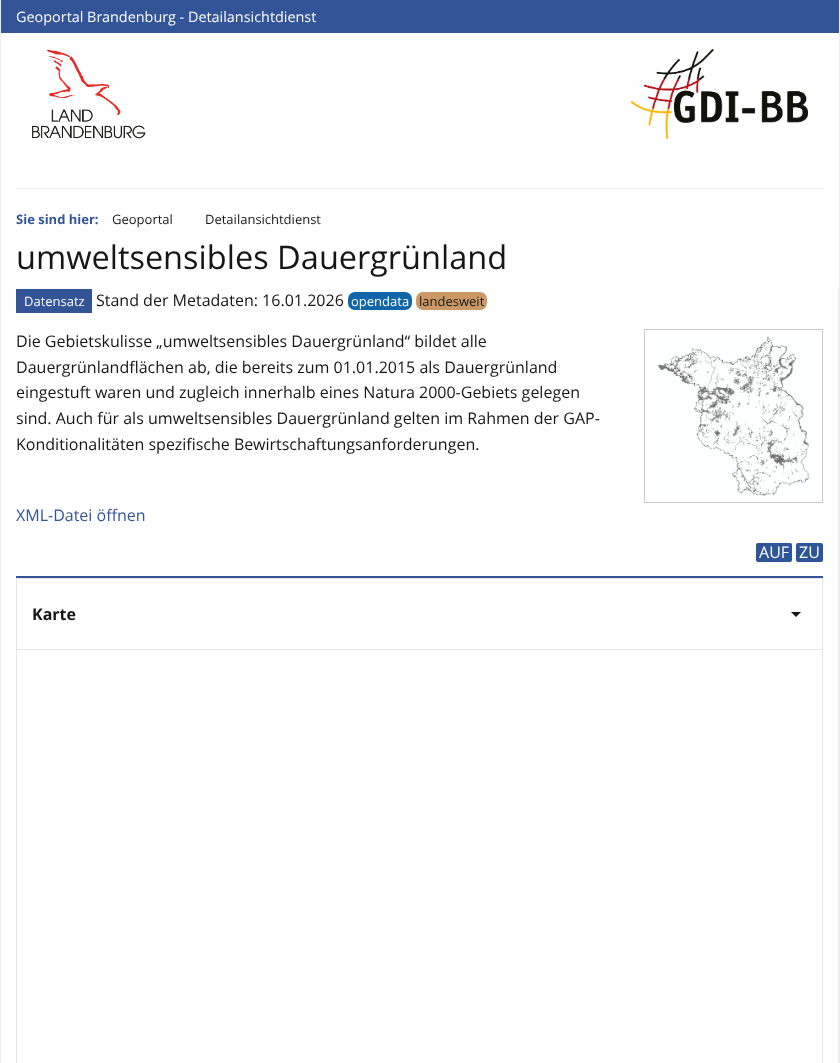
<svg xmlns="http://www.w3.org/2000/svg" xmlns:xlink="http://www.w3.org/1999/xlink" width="840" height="1063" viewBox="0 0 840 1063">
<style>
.cls-1{font:14.4px Open Sans;fill:#ffffff}
.cls-2{font:bold 13px Open Sans;fill:#345498}
.cls-3{font:13px Open Sans;fill:#161616}
.cls-4{font:32.5px Open Sans;fill:#161616}
.cls-5{font:13px Open Sans;fill:#ffffff}
.cls-6{font:16px Open Sans;fill:#161616}
.cls-7{font:16px Open Sans;fill:#345498}
.cls-8{font:16px Open Sans;fill:#ffffff}
.cls-9{font:bold 16px Open Sans;fill:#161616}
</style>
<rect width="100%" height="100%" fill="#eeeeee"/>
<rect fill="#ffffff" x="1" y="33" width="838" height="1030"/>
<rect fill="#345498" x="1" y="0" width="838" height="33"/>
<image xlink:href="image0.png" x="32" y="49" width="114" height="90"/>
<image xlink:href="image1.png" x="631" y="49" width="177" height="90"/>
<rect fill="#eeeeee" x="16" y="188" width="808" height="1"/>
<rect fill="#eeeeee" x="838" y="288" width="1" height="775"/>
<rect fill="#345498" x="16" y="289" width="76" height="24"/>
<rect fill="#1166aa" x="348" y="292" width="64" height="18" rx="7"/>
<rect fill="#cc9966" x="416" y="292" width="71" height="18" rx="7"/>
<rect fill="none" stroke="#cacaca" x="644.5" y="329.5" width="178" height="173"/>
<image xlink:href="image2.png" x="657" y="336" width="153" height="160"/>
<rect fill="#2e5697" x="756" y="543" width="36" height="19" rx="2"/>
<rect fill="#2e5697" x="796" y="543" width="27" height="19" rx="2"/>
<rect fill="#345498" x="16" y="576" width="807" height="2"/>
<rect fill="#e6e6e6" x="16" y="578" width="807" height="1"/>
<rect fill="#e6e6e6" x="822" y="578" width="1" height="71"/>
<rect fill="#e6e6e6" x="16" y="578" width="1" height="71"/>
<path fill="#161616" d="M791 612H801L796 617Z"/>
<rect fill="none" stroke="#e6e6e6" x="16.5" y="649.5" width="806" height="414"/>
<text class="cls-1" x="16" y="22">Geoportal Brandenburg - Detailansichtdienst</text>
<text class="cls-2" x="16" y="224">Sie sind hier:</text>
<text class="cls-3" x="112" y="224">Geoportal</text>
<text class="cls-3" x="205" y="224">Detailansichtdienst</text>
<text class="cls-4" x="16" y="269">umweltsensibles Dauergrünland</text>
<text class="cls-5" x="24" y="306">Datensatz</text>
<text class="cls-6" x="96" y="306">Stand der Metadaten: 16.01.2026</text>
<text class="cls-5" x="351" y="306">opendata</text>
<text class="cls-3" x="419" y="306">landesweit</text>
<text class="cls-6"><tspan x="16" y="347">Die Gebietskulisse „umweltsensibles Dauergrünland“ bildet alle</tspan><tspan x="16" y="373">Dauergrünlandflächen ab, die bereits zum 01.01.2015 als Dauergrünland</tspan><tspan x="16" y="398">eingestuft waren und zugleich innerhalb eines Natura 2000-Gebiets gelegen</tspan><tspan x="16" y="424">sind. Auch für als umweltsensibles Dauergrünland gelten im Rahmen der GAP-</tspan><tspan x="16" y="450">Konditionalitäten spezifische Bewirtschaftungsanforderungen.</tspan></text>
<text class="cls-7" x="16" y="521">XML-Datei öffnen</text>
<text class="cls-8" x="759" y="558">AUF</text>
<text class="cls-8" x="799" y="558">ZU</text>
<text class="cls-9" x="32" y="620">Karte</text>
</svg>
